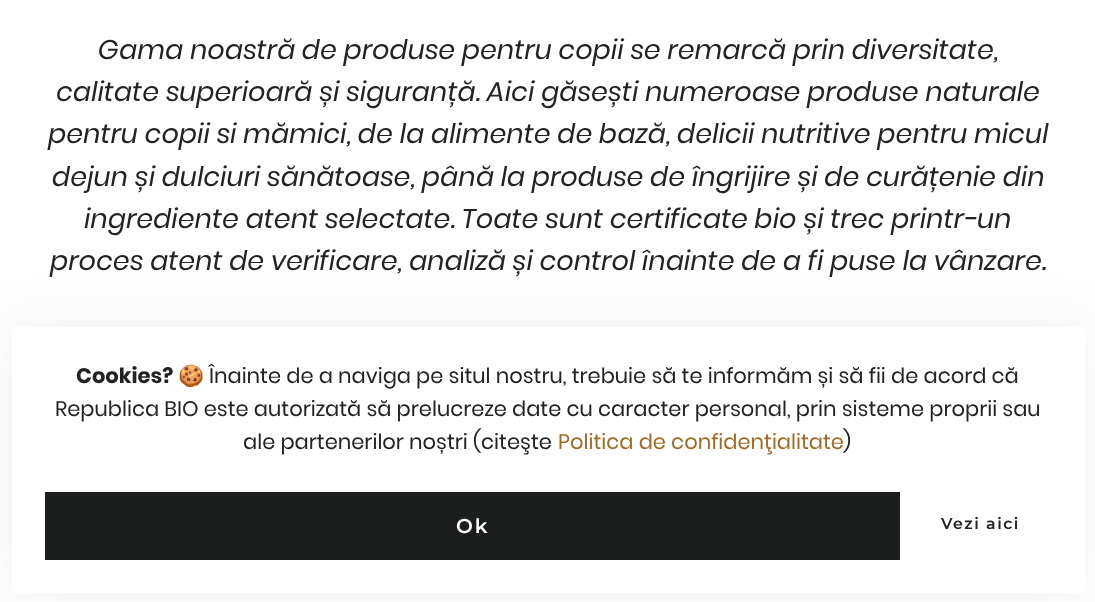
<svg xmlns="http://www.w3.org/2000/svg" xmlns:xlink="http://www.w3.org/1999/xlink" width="1095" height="602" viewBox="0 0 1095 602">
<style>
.cls-1{font:italic 27px Poppins;fill:#222323}
.cls-2{font:bold 21px Poppins;fill:#222323}
.cls-3{font:21px Noto Color Emoji;fill:#222323}
.cls-4{font:21px Poppins;fill:#222323}
.cls-5{font:21px Poppins;fill:#a26b25}
.cls-6{font:600 20px Montserrat;letter-spacing:2px;fill:#ffffff}
.cls-7{font:600 15.75px Montserrat;letter-spacing:1.5px;fill:#222323}
</style>
<rect width="100%" height="100%" fill="#ffffff"/>
<rect fill="#1c1d1d" fill-opacity="0.07" filter="blur(30px)" x="12" y="327" width="1073" height="266" rx="5"/>
<rect fill="#ffffff" x="12" y="327" width="1073" height="266" rx="5"/>
<rect fill="#1c1d1d" x="45" y="492" width="855" height="68"/>
<text class="cls-1" x="98" y="59">Gama noastră de produse pentru copii se remarcă prin diversitate,</text>
<text class="cls-1" x="56" y="101">calitate superioară și siguranță. Aici găsești numeroase produse naturale</text>
<text class="cls-1" x="48" y="143">pentru copii si mămici, de la alimente de bază, delicii nutritive pentru micul</text>
<text class="cls-1" x="52" y="186">dejun și dulciuri sănătoase, până la produse de îngrijire și de curățenie din</text>
<text class="cls-1" x="84" y="228">ingrediente atent selectate. Toate sunt certificate bio și trec printr-un</text>
<text class="cls-1" x="50" y="270">proces atent de verificare, analiză și control înainte de a fi puse la vânzare.</text>
<text class="cls-2" x="76" y="383">Cookies?</text>
<text class="cls-3" x="178" y="383">🍪</text>
<text class="cls-4" x="209" y="383">Înainte de a naviga pe situl nostru, trebuie să te informăm și să fii de acord că</text>
<text class="cls-4" x="55" y="416">Republica BIO este autorizată să prelucreze date cu caracter personal, prin sisteme proprii sau</text>
<text class="cls-4" x="243" y="449">ale partenerilor noștri (citeşte</text>
<text class="cls-5" x="558" y="449">Politica de confidenţialitate</text>
<text class="cls-4" x="843" y="449">)</text>
<text class="cls-6" x="456" y="533">Ok</text>
<text class="cls-7" x="941" y="529">Vezi aici</text>
</svg>
